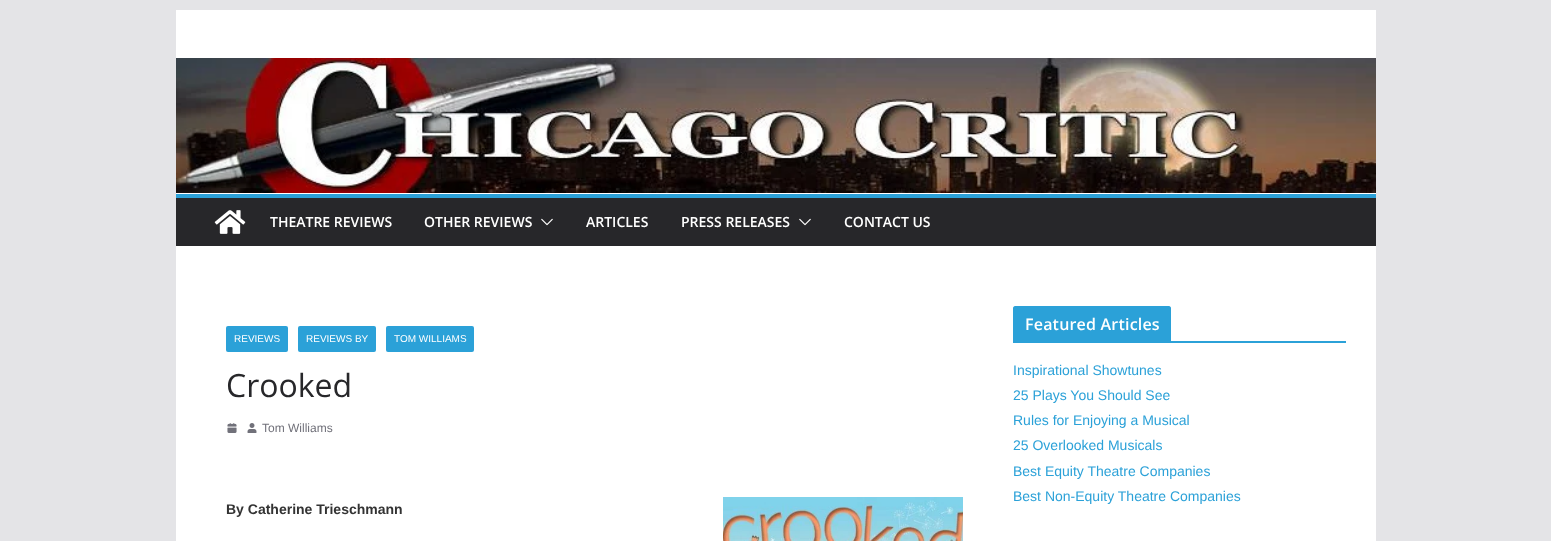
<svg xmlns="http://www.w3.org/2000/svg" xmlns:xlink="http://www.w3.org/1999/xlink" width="1551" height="541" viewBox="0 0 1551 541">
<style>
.cls-1{font:600 14px Open Sans;fill:#ffffff}
.cls-2{font:10px Liberation Sans;fill:#ffffff}
.cls-3{font:32px Open Sans;fill:#27272a}
.cls-4{font:12px Liberation Sans;fill:#71717a}
.cls-5{font:bold 14px Liberation Sans;fill:#333333}
.cls-6{font:600 16px Open Sans;letter-spacing:0.2px;fill:#ffffff}
.cls-7{font:14px Liberation Sans;fill:#2ba1d8}
</style>
<rect width="100%" height="100%" fill="#e4e4e7"/>
<rect fill="#ffffff" x="176" y="10" width="1200" height="184"/>
<image xlink:href="image0.png" x="176" y="58" width="1200" height="135"/>
<rect fill="#27272a" x="176" y="198" width="1200" height="48"/>
<rect fill="#2ba1d8" x="176" y="194" width="1200" height="4"/>
<image xlink:href="image1.png" x="214" y="210" width="32" height="24"/>
<image xlink:href="image2.png" x="541" y="218" width="12" height="8"/>
<image xlink:href="image2.png" x="799" y="218" width="12" height="8"/>
<rect fill="#ffffff" x="176" y="246" width="1200" height="295"/>
<rect fill="#2ba1d8" x="226" y="326" width="62" height="26" rx="2"/>
<rect fill="#2ba1d8" x="298" y="326" width="78" height="26" rx="2"/>
<rect fill="#2ba1d8" x="386" y="326" width="88" height="26" rx="2"/>
<image xlink:href="image3.png" x="227" y="423" width="10" height="10"/>
<image xlink:href="image4.png" x="247" y="423" width="10" height="10"/>
<image xlink:href="image5.png" x="723" y="497" width="240" height="44"/>
<rect fill="#2ba1d8" x="1013" y="341" width="333" height="2"/>
<path fill="#2ba1d8" d="M1015 306H1169C1170 306 1171 307 1171 308V341H1013V308C1013 307 1014 306 1015 306Z"/>
<text class="cls-1" x="270" y="227">THEATRE REVIEWS</text>
<text class="cls-1" x="424" y="227">OTHER REVIEWS</text>
<text class="cls-1" x="586" y="227">ARTICLES</text>
<text class="cls-1" x="681" y="227">PRESS RELEASES</text>
<text class="cls-1" x="844" y="227">CONTACT US</text>
<text class="cls-2" x="234" y="342">REVIEWS</text>
<text class="cls-2" x="306" y="342">REVIEWS BY</text>
<text class="cls-2" x="394" y="342">TOM WILLIAMS</text>
<text class="cls-3" x="226" y="397">Crooked</text>
<text class="cls-4" x="262" y="432">Tom Williams</text>
<text class="cls-5" x="226" y="514">By Catherine Trieschmann</text>
<text class="cls-6" x="1025" y="330">Featured Articles</text>
<text class="cls-7"><tspan x="1013" y="375">Inspirational Showtunes</tspan><tspan x="1013" y="400">25 Plays You Should See</tspan><tspan x="1013" y="425">Rules for Enjoying a Musical</tspan><tspan x="1013" y="450">25 Overlooked Musicals</tspan><tspan x="1013" y="476">Best Equity Theatre Companies</tspan><tspan x="1013" y="501">Best Non-Equity Theatre Companies</tspan></text>
</svg>
